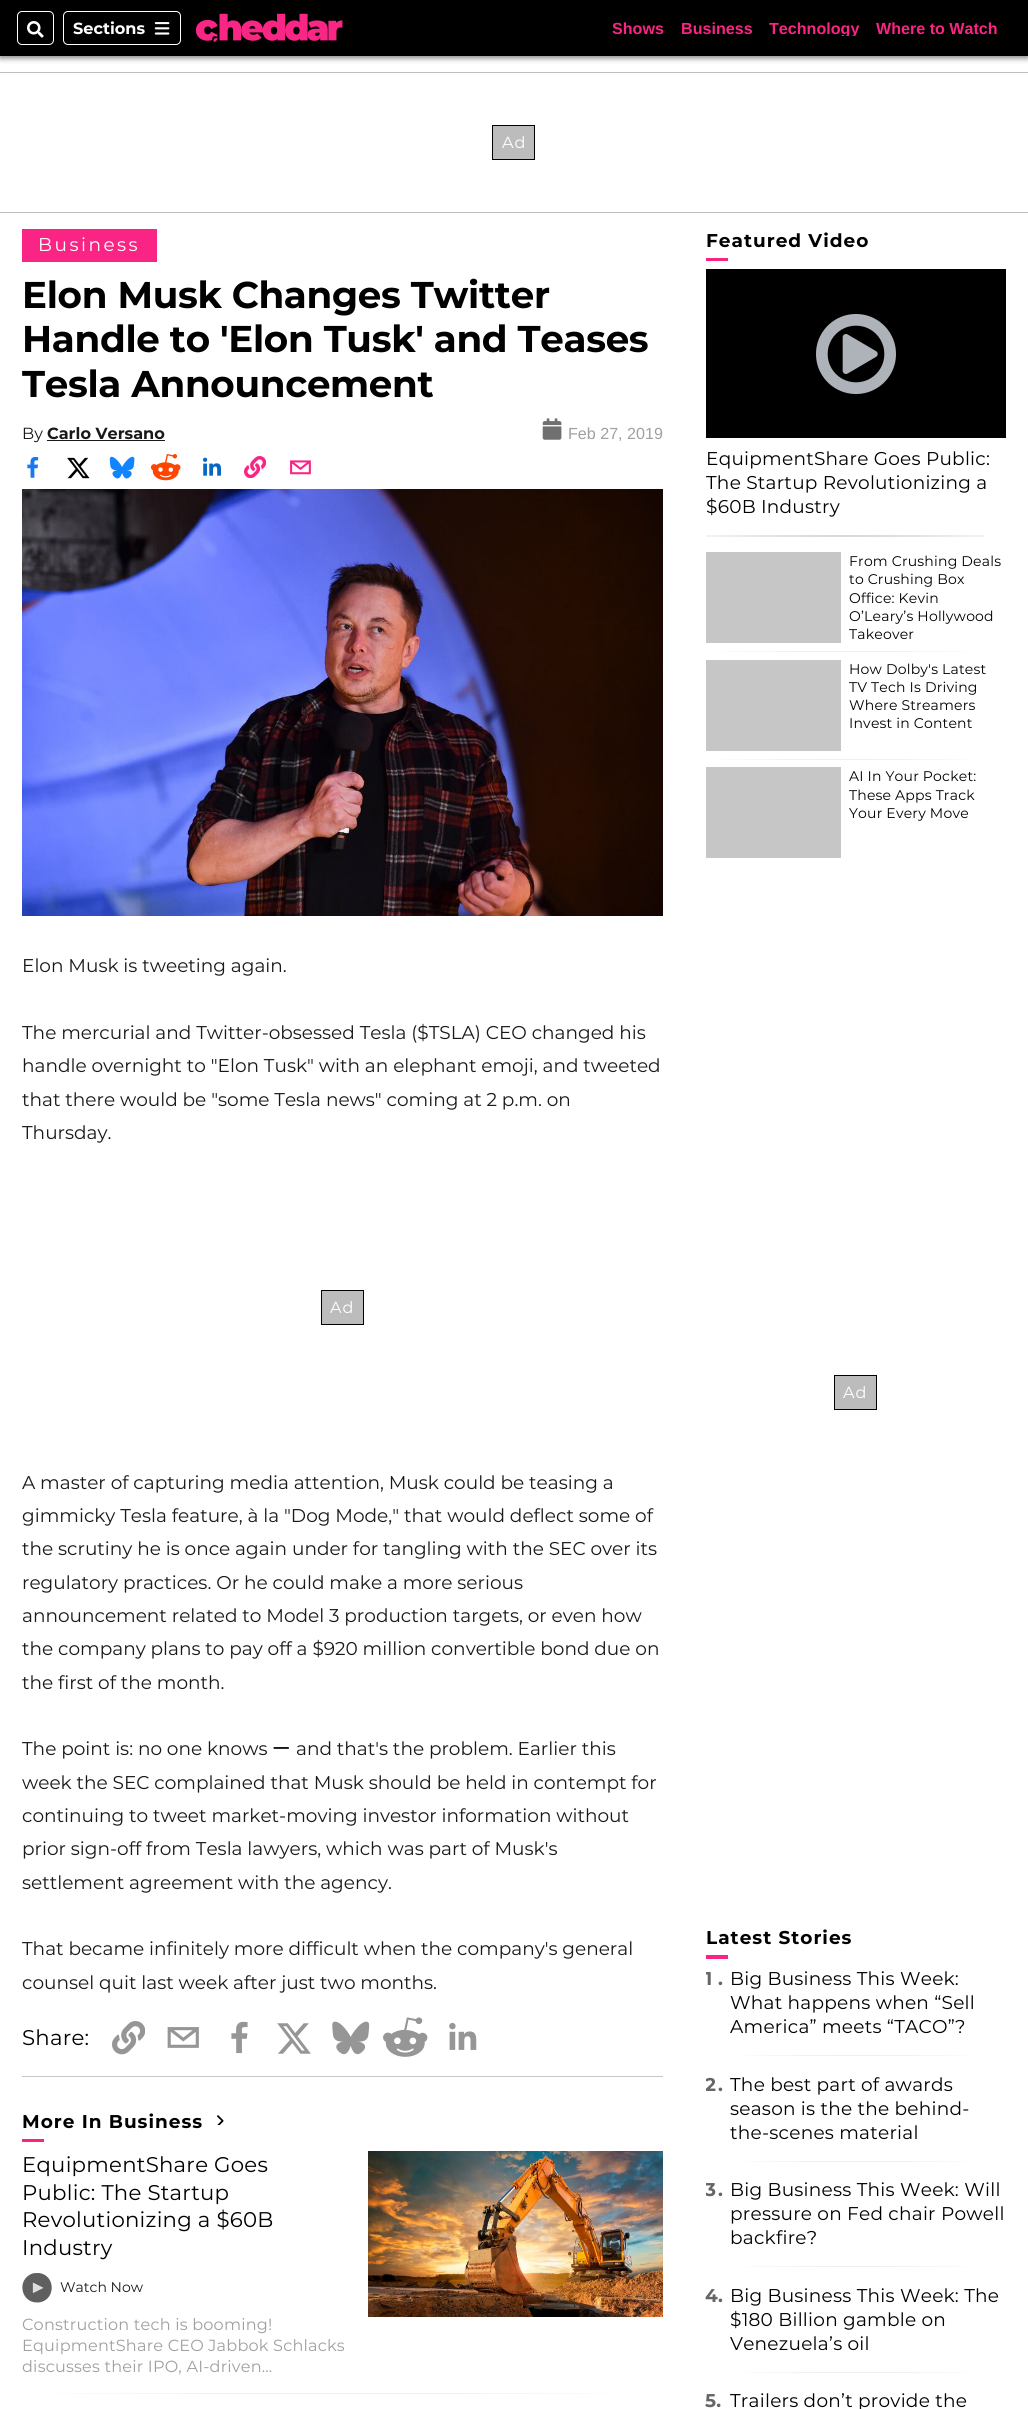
#include <cairo.h>
#include <math.h>
#include <stddef.h>

typedef struct { const char *family; double size; int italic, bold; unsigned color; } style_t;
static cairo_t *ctx;

static void ink(unsigned color) {
    cairo_set_source_rgb(ctx, (color >> 16) / 255.0, (color >> 8 & 255) / 255.0, (color & 255) / 255.0);
}

static void write(double x, double y, const char *s, const style_t *st) {
    cairo_select_font_face(ctx, st->family, st->italic ? CAIRO_FONT_SLANT_ITALIC : CAIRO_FONT_SLANT_NORMAL,
        st->bold ? CAIRO_FONT_WEIGHT_BOLD : CAIRO_FONT_WEIGHT_NORMAL);
    cairo_set_font_size(ctx, st->size);
    ink(st->color);
    cairo_move_to(ctx, x, y);
    cairo_show_text(ctx, s);
}

static void write_spaced(double x, double y, const char *s, double letter, double word) {
    cairo_move_to(ctx, x, y);
    while (*s) {
        char ch[5] = {0};
        int n = 0;
        do ch[n++] = *s++; while ((*s & 0xC0) == 0x80);
        cairo_show_text(ctx, ch);
        cairo_rel_move_to(ctx, letter + word * (*ch == ' '), 0);
    }
}

static void block(double x, double y, double w, double h, unsigned color) {
    ink(color);
    cairo_rectangle(ctx, x, y, w, h);
    cairo_fill(ctx);
}

static void round_path(double x, double y, double w, double h, double r) {
    cairo_new_sub_path(ctx);
    cairo_arc(ctx, x + w - r, y + h - r, r, 0, M_PI / 2);
    cairo_arc(ctx, x + r, y + h - r, r, M_PI / 2, M_PI);
    cairo_arc(ctx, x + r, y + r, r, M_PI, 1.5 * M_PI);
    cairo_arc(ctx, x + w - r, y + r, r, 1.5 * M_PI, 2 * M_PI);
    cairo_close_path(ctx);
}

static void blur_box(double x, double y, double w, double h, double r, double blur, double alpha) {
    cairo_push_group_with_content(ctx, CAIRO_CONTENT_ALPHA);
    cairo_set_operator(ctx, CAIRO_OPERATOR_SOURCE);
    for (int i = 15; i >= -15 && fmin(w, h) + blur * i / 3 > 0; i -= 2) {
        double e = blur * i / 6;
        cairo_set_source_rgba(ctx, 0, 0, 0, alpha * erfc((i - 1) / 8.5) / 2);
        round_path(x - e, y - e, w + 2 * e, h + 2 * e, fmax(0, fmin(r + e + blur * .6, fmin(w, h) / 2 + e)));
        cairo_fill(ctx);
    }
    cairo_pattern_t *soft = cairo_pop_group(ctx);
    cairo_mask(ctx, soft);
    cairo_pattern_destroy(soft);
}

static void paste(const char *path, double x, double y, double w, double h) {
    cairo_surface_t *image = cairo_image_surface_create_from_png(path);
    cairo_save(ctx);
    cairo_set_source_surface(ctx, image, x, y);
    cairo_rectangle(ctx, x, y, w, h);
    cairo_fill(ctx);
    cairo_restore(ctx);
    cairo_surface_destroy(image);
}

static const style_t s1 = {"Montserrat", 16.1, 0, 1, 0xffffff};
static const style_t s2 = {"Liberation Sans", 16.1, 0, 1, 0xf92484};
static const style_t s3 = {"Montserrat", 16.1, 0, 0, 0x191919};
static const style_t s4 = {"Montserrat", 16.1, 0, 1, 0x191919};
static const style_t s5 = {"Liberation Sans", 16.1, 0, 0, 0xa0a0a0};
static const style_t s6 = {"Montserrat", 18.5, 0, 0, 0x191919};
static const style_t s7 = {"WenQuanYi Zen Hei Medium", 18.5, 0, 0, 0x191919};
static const style_t s8 = {"Montserrat", 14, 0, 0, 0x191919};

int main(void) {
    cairo_surface_t *surface = cairo_image_surface_create(CAIRO_FORMAT_RGB24, 1028, 2409);
    ctx = cairo_create(surface);
    cairo_font_options_t *options = cairo_font_options_create();
    cairo_font_options_set_hint_metrics(options, CAIRO_HINT_METRICS_OFF);
    cairo_font_options_set_hint_style(options, CAIRO_HINT_STYLE_NONE);
    cairo_set_font_options(ctx, options);
    cairo_set_miter_limit(ctx, 4);
    cairo_pattern_t *gradient;
    ink(0xffffff);
    cairo_paint(ctx);
    ink(0x000000);
    blur_box(0, 2, 1028, 56, 0, 3, 0.5);
    block(0, 0, 1028, 56, 0x000000);
    round_path(17.5, 11.5, 36, 33, 4.5);
    ink(0xffffff);
    cairo_set_line_width(ctx, 1);
    cairo_stroke(ctx);
    paste("pic1.png", 27, 21, 17, 17);
    round_path(63.5, 11.5, 117, 33, 4.5);
    cairo_stroke(ctx);
    write(73, 34, "Sections", &s1);
    paste("pic2.png", 154, 22, 16, 13);
    paste("pic3.png", 195, 13, 148, 29);
    write(612, 34, "Shows", &s2);
    write(681, 34, "Business", &s2);
    cairo_save(ctx);
    cairo_rectangle(ctx, 612, 20, 385, 16);
    cairo_clip(ctx);
    write(769, 34, "Technology", &s2);
    cairo_restore(ctx);
    write(876, 34, "Where to Watch", &s2);
    block(0, 72, 1028, 1, 0xbfbfbf);
    block(493, 126, 41, 33, 0xbcbcbc);
    cairo_rectangle(ctx, 492.5, 125.5, 42, 34);
    ink(0x000000);
    cairo_stroke(ctx);
    cairo_select_font_face(ctx, "Montserrat", CAIRO_FONT_SLANT_NORMAL, CAIRO_FONT_WEIGHT_NORMAL);
    ink(0xffffff);
    write_spaced(502, 148, "Ad", 1, 0);
    block(0, 212, 1028, 1, 0xbfbfbf);
    block(22, 229, 135, 33, 0xf92484);
    cairo_set_font_size(ctx, 18.5);
    ink(0xffffff);
    write_spaced(38, 251, "Business", 2.5, 0);
    cairo_select_font_face(ctx, "Montserrat", CAIRO_FONT_SLANT_NORMAL, CAIRO_FONT_WEIGHT_BOLD);
    cairo_set_font_size(ctx, 37.25);
    ink(0x000000);
    write_spaced(22, 308, "Elon Musk Changes Twitter", -0.3, 0);
    write_spaced(22, 352, "Handle to 'Elon Tusk' and Teases", -0.3, 0);
    write_spaced(22, 397, "Tesla Announcement", -0.3, 0);
    write(22, 439, "By", &s3);
    write(47, 439, "Carlo Versano", &s4);
    block(47, 440, 118, 1, 0x191919);
    paste("pic4.png", 542, 418, 20, 22);
    write(568, 439, "Feb 27, 2019", &s5);
    paste("pic5.png", 27, 456, 12, 22);
    paste("pic6.png", 67, 457, 23, 22);
    paste("pic7.png", 109, 456, 26, 23);
    paste("pic8.png", 150, 454, 31, 27);
    paste("pic9.png", 203, 457, 18, 19);
    paste("pic10.png", 244, 456, 22, 22);
    paste("pic11.png", 290, 460, 21, 15);
    paste("pic12.png", 22, 489, 641, 427);
    cairo_select_font_face(ctx, "Montserrat", CAIRO_FONT_SLANT_NORMAL, CAIRO_FONT_WEIGHT_BOLD);
    cairo_set_font_size(ctx, 18.5);
    ink(0x000000);
    write_spaced(706, 247, "Featured Video", 1, 0);
    block(706, 258, 22, 3, 0xf92484);
    block(706, 269, 300, 169, 0x000000);
    paste("pic13.png", 816, 314, 80, 80);
    cairo_select_font_face(ctx, "Montserrat", CAIRO_FONT_SLANT_NORMAL, CAIRO_FONT_WEIGHT_NORMAL);
    write_spaced(706, 465, "EquipmentShare Goes Public:", 0.25, 0);
    write_spaced(706, 489, "The Startup Revolutionizing a", 0.25, 0);
    write_spaced(706, 513, "$60B Industry", 0.25, 0);
    gradient = cairo_pattern_create_radial(0, 0, 0, 0, 0, 1);
    cairo_pattern_set_matrix(gradient, &(cairo_matrix_t){1.0 / 197, 0, 0, 1.0 / 1.4, -1.0 * 845 / 197, -1.0 * 536 / 1.4});
    cairo_pattern_add_color_stop_rgba(gradient, 0, 0.776, 0.776, 0.776, 1);
    cairo_pattern_add_color_stop_rgba(gradient, 1, 1, 1, 1, 1);
    cairo_set_source(ctx, gradient);
    cairo_pattern_destroy(gradient);
    cairo_rectangle(ctx, 706, 535, 278, 2);
    cairo_fill(ctx);
    block(706, 552, 135, 91, 0xc6c6c6);
    cairo_set_font_size(ctx, 14);
    ink(0x000000);
    write_spaced(849, 566, "From Crushing Deals", 0.2, 0);
    write_spaced(849, 584, "to Crushing Box", 0.2, 0);
    write_spaced(849, 603, "Office: Kevin", 0.2, 0);
    write_spaced(849, 621, "O’Leary’s Hollywood", 0.2, 0);
    write_spaced(849, 639, "Takeover", 0.2, 0);
    gradient = cairo_pattern_create_radial(0, 0, 0, 0, 0, 1);
    cairo_pattern_set_matrix(gradient, &(cairo_matrix_t){1.0 / 197, 0, 0, 1.0 / 0.7, -1.0 * 845 / 197, -1.0 * 652 / 0.7});
    cairo_pattern_add_color_stop_rgba(gradient, 0, 0.776, 0.776, 0.776, 1);
    cairo_pattern_add_color_stop_rgba(gradient, 1, 1, 1, 1, 1);
    cairo_set_source(ctx, gradient);
    cairo_pattern_destroy(gradient);
    cairo_rectangle(ctx, 720, 651, 250, 1);
    cairo_fill(ctx);
    block(706, 660, 135, 91, 0xc6c6c6);
    ink(0x000000);
    write_spaced(849, 674, "How Dolby's Latest", 0.2, 0);
    write_spaced(849, 692, "TV Tech Is Driving", 0.2, 0);
    write_spaced(849, 710, "Where Streamers", 0.2, 0);
    write_spaced(849, 728, "Invest in Content", 0.2, 0);
    gradient = cairo_pattern_create_radial(0, 0, 0, 0, 0, 1);
    cairo_pattern_set_matrix(gradient, &(cairo_matrix_t){1.0 / 197, 0, 0, 1.0 / 0.7, -1.0 * 845 / 197, -1.0 * 760 / 0.7});
    cairo_pattern_add_color_stop_rgba(gradient, 0, 0.776, 0.776, 0.776, 1);
    cairo_pattern_add_color_stop_rgba(gradient, 1, 1, 1, 1, 1);
    cairo_set_source(ctx, gradient);
    cairo_pattern_destroy(gradient);
    cairo_rectangle(ctx, 720, 759, 250, 1);
    cairo_fill(ctx);
    block(706, 767, 135, 91, 0xc6c6c6);
    ink(0x000000);
    write_spaced(849, 781, "AI In Your Pocket:", 0.2, 0);
    write_spaced(849, 800, "These Apps Track", 0.2, 0);
    write_spaced(849, 818, "Your Every Move", 0.2, 0);
    block(835, 1376, 41, 33, 0xbcbcbc);
    cairo_rectangle(ctx, 834.5, 1375.5, 42, 34);
    ink(0x000000);
    cairo_stroke(ctx);
    cairo_set_font_size(ctx, 16.1);
    ink(0xffffff);
    write_spaced(843, 1398, "Ad", 1, 0);
    cairo_select_font_face(ctx, "Montserrat", CAIRO_FONT_SLANT_NORMAL, CAIRO_FONT_WEIGHT_BOLD);
    cairo_set_font_size(ctx, 18.5);
    ink(0x000000);
    write_spaced(706, 1944, "Latest Stories", 1, 0);
    block(706, 1955, 22, 4, 0xf92484);
    cairo_save(ctx);
    cairo_rectangle(ctx, 706, 1967, 300, 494);
    cairo_clip(ctx);
    ink(0x666666);
    write_spaced(705, 1985, "1", 0.25, 0);
    cairo_restore(ctx);
    ink(0x666666);
    write_spaced(718, 1985, ".", 0.25, 0);
    cairo_select_font_face(ctx, "Montserrat", CAIRO_FONT_SLANT_NORMAL, CAIRO_FONT_WEIGHT_NORMAL);
    ink(0x000000);
    write_spaced(730, 1985, "Big Business This Week:", 0.25, 0);
    write_spaced(730, 2009, "What happens when “Sell", 0.25, 0);
    write_spaced(730, 2033, "America” meets “TACO”?", 0.25, 0);
    gradient = cairo_pattern_create_radial(0, 0, 0, 0, 0, 1);
    cairo_pattern_set_matrix(gradient, &(cairo_matrix_t){1.0 / 177, 0, 0, 1.0 / 0.7, -1.0 * 856 / 177, -1.0 * 2056 / 0.7});
    cairo_pattern_add_color_stop_rgba(gradient, 0, 0.776, 0.776, 0.776, 1);
    cairo_pattern_add_color_stop_rgba(gradient, 1, 1, 1, 1, 1);
    cairo_set_source(ctx, gradient);
    cairo_pattern_destroy(gradient);
    cairo_rectangle(ctx, 743, 2055, 226, 1);
    cairo_fill(ctx);
    cairo_save(ctx);
    cairo_rectangle(ctx, 706, 1967, 300, 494);
    cairo_clip(ctx);
    cairo_select_font_face(ctx, "Montserrat", CAIRO_FONT_SLANT_NORMAL, CAIRO_FONT_WEIGHT_BOLD);
    ink(0x666666);
    write_spaced(705, 2091, "2", 0.25, 0);
    cairo_restore(ctx);
    cairo_select_font_face(ctx, "Montserrat", CAIRO_FONT_SLANT_NORMAL, CAIRO_FONT_WEIGHT_BOLD);
    ink(0x666666);
    write_spaced(718, 2091, ".", 0.25, 0);
    cairo_select_font_face(ctx, "Montserrat", CAIRO_FONT_SLANT_NORMAL, CAIRO_FONT_WEIGHT_NORMAL);
    ink(0x000000);
    write_spaced(730, 2091, "The best part of awards", 0.25, 0);
    write_spaced(730, 2115, "season is the the behind-", 0.25, 0);
    write_spaced(730, 2139, "the-scenes material", 0.25, 0);
    gradient = cairo_pattern_create_radial(0, 0, 0, 0, 0, 1);
    cairo_pattern_set_matrix(gradient, &(cairo_matrix_t){1.0 / 177, 0, 0, 1.0 / 0.7, -1.0 * 856 / 177, -1.0 * 2162 / 0.7});
    cairo_pattern_add_color_stop_rgba(gradient, 0, 0.776, 0.776, 0.776, 1);
    cairo_pattern_add_color_stop_rgba(gradient, 1, 1, 1, 1, 1);
    cairo_set_source(ctx, gradient);
    cairo_pattern_destroy(gradient);
    cairo_rectangle(ctx, 743, 2161, 226, 1);
    cairo_fill(ctx);
    cairo_save(ctx);
    cairo_rectangle(ctx, 706, 1967, 300, 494);
    cairo_clip(ctx);
    cairo_select_font_face(ctx, "Montserrat", CAIRO_FONT_SLANT_NORMAL, CAIRO_FONT_WEIGHT_BOLD);
    ink(0x666666);
    write_spaced(705, 2196, "3", 0.25, 0);
    cairo_restore(ctx);
    cairo_select_font_face(ctx, "Montserrat", CAIRO_FONT_SLANT_NORMAL, CAIRO_FONT_WEIGHT_BOLD);
    ink(0x666666);
    write_spaced(718, 2196, ".", 0.25, 0);
    cairo_select_font_face(ctx, "Montserrat", CAIRO_FONT_SLANT_NORMAL, CAIRO_FONT_WEIGHT_NORMAL);
    ink(0x000000);
    write_spaced(730, 2196, "Big Business This Week: Will", 0.25, 0);
    write_spaced(730, 2220, "pressure on Fed chair Powell", 0.25, 0);
    write_spaced(730, 2244, "backfire?", 0.25, 0);
    gradient = cairo_pattern_create_radial(0, 0, 0, 0, 0, 1);
    cairo_pattern_set_matrix(gradient, &(cairo_matrix_t){1.0 / 177, 0, 0, 1.0 / 0.7, -1.0 * 856 / 177, -1.0 * 2267 / 0.7});
    cairo_pattern_add_color_stop_rgba(gradient, 0, 0.776, 0.776, 0.776, 1);
    cairo_pattern_add_color_stop_rgba(gradient, 1, 1, 1, 1, 1);
    cairo_set_source(ctx, gradient);
    cairo_pattern_destroy(gradient);
    cairo_rectangle(ctx, 743, 2266, 226, 1);
    cairo_fill(ctx);
    cairo_select_font_face(ctx, "Montserrat", CAIRO_FONT_SLANT_NORMAL, CAIRO_FONT_WEIGHT_BOLD);
    ink(0x666666);
    write_spaced(705, 2302, "4.", 0.25, 0);
    cairo_select_font_face(ctx, "Montserrat", CAIRO_FONT_SLANT_NORMAL, CAIRO_FONT_WEIGHT_NORMAL);
    ink(0x000000);
    write_spaced(730, 2302, "Big Business This Week: The", 0.25, 0);
    write_spaced(730, 2326, "$180 Billion gamble on", 0.25, 0);
    write_spaced(730, 2350, "Venezuela’s oil", 0.25, 0);
    gradient = cairo_pattern_create_radial(0, 0, 0, 0, 0, 1);
    cairo_pattern_set_matrix(gradient, &(cairo_matrix_t){1.0 / 177, 0, 0, 1.0 / 0.7, -1.0 * 856 / 177, -1.0 * 2373 / 0.7});
    cairo_pattern_add_color_stop_rgba(gradient, 0, 0.776, 0.776, 0.776, 1);
    cairo_pattern_add_color_stop_rgba(gradient, 1, 1, 1, 1, 1);
    cairo_set_source(ctx, gradient);
    cairo_pattern_destroy(gradient);
    cairo_rectangle(ctx, 743, 2372, 226, 1);
    cairo_fill(ctx);
    cairo_select_font_face(ctx, "Montserrat", CAIRO_FONT_SLANT_NORMAL, CAIRO_FONT_WEIGHT_BOLD);
    ink(0x666666);
    write_spaced(705, 2407, "5.", 0.25, 0);
    cairo_select_font_face(ctx, "Montserrat", CAIRO_FONT_SLANT_NORMAL, CAIRO_FONT_WEIGHT_NORMAL);
    ink(0x000000);
    write_spaced(730, 2407, "Trailers don’t provide the", 0.25, 0);
    write(22, 972, "Elon Musk is tweeting again.", &s6);
    write(22, 1039, "The mercurial and Twitter-obsessed Tesla ($TSLA) CEO changed his", &s6);
    write(22, 1072, "handle overnight to \"Elon Tusk\" with an elephant emoji, and tweeted", &s6);
    write(22, 1106, "that there would be \"some Tesla news\" coming at 2 p.m. on", &s6);
    write(22, 1139, "Thursday.", &s6);
    block(322, 1291, 41, 33, 0xbcbcbc);
    cairo_rectangle(ctx, 321.5, 1290.5, 42, 34);
    ink(0x000000);
    cairo_stroke(ctx);
    cairo_set_font_size(ctx, 16.1);
    ink(0xffffff);
    write_spaced(330, 1313, "Ad", 1, 0);
    write(22, 1489, "A master of capturing media attention, Musk could be teasing a", &s6);
    write(22, 1522, "gimmicky Tesla feature, à la \"Dog Mode,\" that would deflect some of", &s6);
    write(22, 1555, "the scrutiny he is once again under for tangling with the SEC over its", &s6);
    write(22, 1589, "regulatory practices. Or he could make a more serious", &s6);
    write(22, 1622, "announcement related to Model 3 production targets, or even how", &s6);
    write(22, 1655, "the company plans to pay off a $920 million convertible bond due on", &s6);
    write(22, 1689, "the first of the month.", &s6);
    write(22, 1755, "The point is: no one knows", &s6);
    write(272, 1755, "ー", &s7);
    write(296, 1755, "and that's the problem. Earlier this", &s6);
    write(22, 1789, "week the SEC complained that Musk should be held in contempt for", &s6);
    write(22, 1822, "continuing to tweet market-moving investor information without", &s6);
    write(22, 1855, "prior sign-off from Tesla lawyers, which was part of Musk's", &s6);
    write(22, 1889, "settlement agreement with the agency.", &s6);
    write(22, 1955, "That became infinitely more difficult when the company's general", &s6);
    write(22, 1989, "counsel quit last week after just two months.", &s6);
    block(22, 2076, 641, 1, 0xc6c6c6);
    cairo_set_font_size(ctx, 21.25);
    ink(0x000000);
    write_spaced(22, 2045, "Share:", 0.25, 0);
    paste("pic14.png", 112, 2021, 33, 34);
    paste("pic15.png", 167, 2027, 32, 21);
    paste("pic16.png", 231, 2021, 17, 33);
    paste("pic17.png", 277, 2023, 34, 31);
    paste("pic18.png", 332, 2021, 38, 34);
    paste("pic19.png", 383, 2017, 45, 40);
    paste("pic20.png", 449, 2022, 28, 28);
    cairo_select_font_face(ctx, "Montserrat", CAIRO_FONT_SLANT_NORMAL, CAIRO_FONT_WEIGHT_BOLD);
    cairo_set_font_size(ctx, 18.5);
    write_spaced(22, 2128, "More In Business", 1, 0);
    paste("pic21.png", 216, 2115, 8, 10);
    block(22, 2139, 22, 3, 0xf92484);
    cairo_select_font_face(ctx, "Montserrat", CAIRO_FONT_SLANT_NORMAL, CAIRO_FONT_WEIGHT_NORMAL);
    cairo_set_font_size(ctx, 21.25);
    ink(0x000000);
    write_spaced(22, 2172, "EquipmentShare Goes", 0.25, 0);
    write_spaced(22, 2200, "Public: The Startup", 0.25, 0);
    write_spaced(22, 2227, "Revolutionizing a $60B", 0.25, 0);
    write_spaced(22, 2255, "Industry", 0.25, 0);
    ink(0x5f5f5f);
    cairo_new_path(ctx);
    cairo_move_to(ctx, 39, 2273);
    cairo_curve_to(ctx, 57, 2275.5, 55.5, 2302.5, 37, 2302.5);
    cairo_curve_to(ctx, 20.5, 2302.5, 16.5, 2279, 32.5, 2273.5);
    cairo_curve_to(ctx, 34.5, 2273, 37, 2273, 39, 2273);
    cairo_close_path(ctx);
    cairo_fill(ctx);
    paste("pic22.png", 32, 2282, 12, 11);
    write(60, 2292, "Watch Now", &s8);
    cairo_set_font_size(ctx, 16.1);
    ink(0xa0a0a0);
    write_spaced(22, 2330, "Construction tech is booming!", 0.2, 0);
    write_spaced(22, 2351, "EquipmentShare CEO Jabbok Schlacks", 0.2, 0);
    write_spaced(22, 2372, "discusses their IPO, AI-driven…", 0.2, 0);
    paste("pic23.png", 368, 2151, 295, 166);
    gradient = cairo_pattern_create_radial(0, 0, 0, 0, 0, 1);
    cairo_pattern_set_matrix(gradient, &(cairo_matrix_t){1.0 / 438, 0, 0, 1.0 / 0.7, -1.0 * 332 / 438, -1.0 * 2394 / 0.7});
    cairo_pattern_add_color_stop_rgba(gradient, 0, 0.776, 0.776, 0.776, 1);
    cairo_pattern_add_color_stop_rgba(gradient, 1, 1, 1, 1, 1);
    cairo_set_source(ctx, gradient);
    cairo_pattern_destroy(gradient);
    cairo_rectangle(ctx, 54, 2393, 556, 1);
    cairo_fill(ctx);
    cairo_surface_write_to_png(surface, "screenshot.png");
    cairo_font_options_destroy(options);
    cairo_destroy(ctx);
    cairo_surface_destroy(surface);
    return 0;
}
